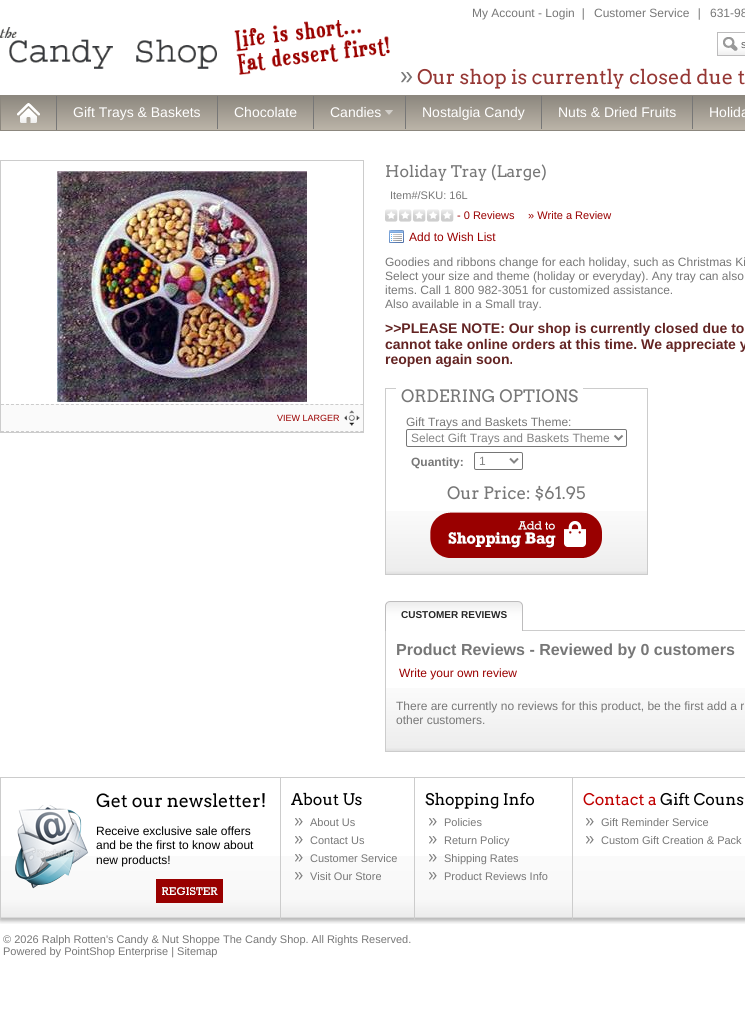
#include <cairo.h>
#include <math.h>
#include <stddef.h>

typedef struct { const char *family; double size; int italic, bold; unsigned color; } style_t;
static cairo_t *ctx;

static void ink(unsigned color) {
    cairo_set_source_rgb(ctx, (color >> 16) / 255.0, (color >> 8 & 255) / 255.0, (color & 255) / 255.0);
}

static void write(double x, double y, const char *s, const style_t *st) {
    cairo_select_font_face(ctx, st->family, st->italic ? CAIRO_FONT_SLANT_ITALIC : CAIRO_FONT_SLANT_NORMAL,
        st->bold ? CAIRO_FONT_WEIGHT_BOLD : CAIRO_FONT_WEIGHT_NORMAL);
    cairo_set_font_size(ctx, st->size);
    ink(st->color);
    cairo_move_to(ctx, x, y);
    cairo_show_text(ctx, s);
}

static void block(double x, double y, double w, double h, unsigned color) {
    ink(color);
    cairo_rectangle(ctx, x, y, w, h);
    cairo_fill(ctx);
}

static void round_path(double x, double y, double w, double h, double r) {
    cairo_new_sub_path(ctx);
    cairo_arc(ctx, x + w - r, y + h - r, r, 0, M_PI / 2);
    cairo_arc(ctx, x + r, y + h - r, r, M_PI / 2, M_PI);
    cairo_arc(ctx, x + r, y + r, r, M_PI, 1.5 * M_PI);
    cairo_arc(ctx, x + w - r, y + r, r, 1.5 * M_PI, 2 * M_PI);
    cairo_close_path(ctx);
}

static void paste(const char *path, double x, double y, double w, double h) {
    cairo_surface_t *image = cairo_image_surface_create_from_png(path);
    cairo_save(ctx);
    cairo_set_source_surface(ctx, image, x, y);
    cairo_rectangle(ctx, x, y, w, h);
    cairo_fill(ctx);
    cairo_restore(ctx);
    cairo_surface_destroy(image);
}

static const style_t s1 = {"Liberation Sans", 12, 0, 0, 0x777777};
static const style_t s2 = {"Liberation Sans", 11, 0, 0, 0x5e5e5e};
static const style_t s3 = {"Arvo", 20, 0, 0, 0x953734};
static const style_t s4 = {"Liberation Sans", 14, 0, 0, 0xffffff};
static const style_t s5 = {"Liberation Sans", 9, 0, 0, 0x990000};
static const style_t s6 = {"Arvo", 16, 0, 0, 0x777777};
static const style_t s7 = {"Liberation Sans", 11, 0, 0, 0x777777};
static const style_t s8 = {"Liberation Sans", 11, 0, 0, 0x990000};
static const style_t s9 = {"Liberation Sans", 12, 0, 0, 0x990000};
static const style_t s10 = {"Liberation Sans", 14, 0, 1, 0x632423};
static const style_t s11 = {"Arvo", 17, 0, 0, 0x777777};
static const style_t s12 = {"Liberation Sans", 12, 0, 0, 0x848484};
static const style_t s13 = {"Liberation Sans", 12, 0, 1, 0x777777};
static const style_t s14 = {"Liberation Sans", 10, 0, 1, 0x262626};
static const style_t s15 = {"Liberation Sans", 16, 0, 1, 0x777777};
static const style_t s16 = {"Arvo", 18, 0, 0, 0x000000};
static const style_t s17 = {"Liberation Sans", 12, 0, 0, 0x000000};
static const style_t s18 = {"Arvo", 16, 0, 0, 0x000000};
static const style_t s19 = {"Arvo", 16, 0, 0, 0xc00000};

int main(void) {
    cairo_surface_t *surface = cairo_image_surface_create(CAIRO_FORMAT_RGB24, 745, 1015);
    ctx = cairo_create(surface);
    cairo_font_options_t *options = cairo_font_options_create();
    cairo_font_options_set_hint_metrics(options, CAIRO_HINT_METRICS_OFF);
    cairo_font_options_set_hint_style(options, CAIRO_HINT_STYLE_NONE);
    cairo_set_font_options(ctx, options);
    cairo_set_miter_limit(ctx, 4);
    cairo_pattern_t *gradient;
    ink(0xffffff);
    cairo_paint(ctx);
    paste("pic1.png", 582, 8, 2, 12);
    write(472, 17, "My Account - Login", &s1);
    paste("pic1.png", 698, 8, 2, 12);
    write(594, 17, "Customer Service", &s1);
    write(710, 17, "631-98", &s1);
    paste("pic2.png", 0, 20, 390, 55);
    paste("pic3.png", 717, 32, 28, 24);
    write(741, 48, "s", &s2);
    paste("pic4.png", 401, 72, 12, 11);
    write(417, 84, "Our shop is currently closed due t", &s3);
    gradient = cairo_pattern_create_linear(481, 96, 481, 130);
    cairo_pattern_add_color_stop_rgba(gradient, 0, 0.549, 0.529, 0.494, 1);
    cairo_pattern_add_color_stop_rgba(gradient, 1, 0.733, 0.706, 0.659, 1);
    cairo_set_source(ctx, gradient);
    cairo_pattern_destroy(gradient);
    cairo_rectangle(ctx, 1, 96, 744, 34);
    cairo_fill(ctx);
    cairo_rectangle(ctx, 0.5, 95.5, 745, 35);
    ink(0x8c877e);
    cairo_set_line_width(ctx, 1);
    cairo_stroke(ctx);
    block(56, 96, 1, 34, 0x777777);
    paste("pic5.png", 17, 103, 23, 20);
    block(217, 96, 1, 33, 0x777777);
    write(73, 117, "Gift Trays & Baskets", &s4);
    block(313, 96, 1, 33, 0x777777);
    write(234, 117, "Chocolate", &s4);
    block(405, 96, 1, 33, 0x777777);
    write(330, 117, "Candies", &s4);
    paste("pic6.png", 385, 110, 8, 5);
    block(541, 96, 1, 33, 0x777777);
    write(422, 117, "Nostalgia Candy", &s4);
    block(692, 96, 1, 33, 0x777777);
    write(558, 117, "Nuts & Dried Fruits", &s4);
    write(709, 117, "Holida", &s4);
    cairo_rectangle(ctx, 0.5, 160.5, 363, 272);
    ink(0xcccccc);
    cairo_stroke(ctx);
    paste("pic7.png", 57, 171, 250, 231);
    block(1, 404, 362, 28, 0xfafafa);
    cairo_new_path(ctx);
    cairo_move_to(ctx, 1, 404.5);
    cairo_line_to(ctx, 363, 404.5);
    ink(0xcccccc);
    cairo_set_dash(ctx, (double[]){3, 1.99}, 2, 0);
    cairo_stroke(ctx);
    cairo_new_path(ctx);
    cairo_move_to(ctx, 1, 431.5);
    cairo_line_to(ctx, 363, 431.5);
    cairo_stroke(ctx);
    paste("pic8.png", 344, 410, 16, 16);
    write(277, 421, "VIEW LARGER", &s5);
    write(385, 177, "Holiday Tray (Large)", &s6);
    write(390, 199, "Item#/SKU: 16L", &s7);
    paste("pic9.png", 385, 209, 69, 13);
    write(457, 219, "- 0 Reviews", &s8);
    write(528, 219, "» Write a Review", &s8);
    paste("pic10.png", 389, 230, 15, 13);
    write(409, 241, "Add to Wish List", &s9);
    write(385, 266, "Goodies and ribbons change for each holiday, such as Christmas Ki", &s1);
    write(385, 280, "Select your size and theme (holiday or everyday). Any tray can also", &s1);
    write(385, 294, "items. Call 1 800 982-3051 for customized assistance.", &s1);
    write(385, 308, "Also available in a Small tray.", &s1);
    write(385, 333, ">>PLEASE NOTE: Our shop is currently closed due to", &s10);
    write(385, 349, "cannot take online orders at this time. We appreciate y", &s10);
    write(385, 364, "reopen again soon.", &s10);
    paste("pic11.png", 386, 511, 261, 63);
    cairo_rectangle(ctx, 385.5, 388.5, 262, 186);
    ink(0xcccccc);
    cairo_set_dash(ctx, NULL, 0, 0);
    cairo_stroke(ctx);
    block(396, 388, 187, 1, 0xffffff);
    write(401, 402, "ORDERING OPTIONS", &s11);
    write(406, 426, "Gift Trays and Baskets Theme:", &s1);
    round_path(406.5, 429.5, 220, 17, 1.5);
    ink(0x767676);
    cairo_stroke(ctx);
    cairo_new_path(ctx);
    cairo_move_to(ctx, 614.5, 435.5);
    cairo_line_to(ctx, 618.5, 439.5);
    cairo_line_to(ctx, 622.5, 435.5);
    ink(0x848484);
    cairo_set_line_width(ctx, 2);
    cairo_stroke(ctx);
    write(411, 442, "Select Gift Trays and Baskets Theme", &s12);
    write(411, 466, "Quantity:", &s13);
    round_path(474.5, 452.5, 48, 17, 1.5);
    ink(0x767676);
    cairo_set_line_width(ctx, 1);
    cairo_stroke(ctx);
    cairo_new_path(ctx);
    cairo_move_to(ctx, 510, 458.5);
    cairo_line_to(ctx, 514, 462.5);
    cairo_line_to(ctx, 518, 458.5);
    ink(0x848484);
    cairo_set_line_width(ctx, 2);
    cairo_stroke(ctx);
    write(479, 465, "1", &s12);
    write(447, 499, "Our Price: $61.95", &s11);
    paste("pic12.png", 430, 512, 172, 46);
    paste("pic16.png", 386, 688, 359, 63);
    cairo_rectangle(ctx, 385.5, 630.5, 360, 121);
    ink(0xcccccc);
    cairo_set_line_width(ctx, 1);
    cairo_stroke(ctx);
    paste("pic13.png", 517, 601, 6, 30);
    paste("pic14.png", 385, 601, 6, 30);
    paste("pic15.png", 391, 601, 126, 30);
    write(401, 618, "CUSTOMER REVIEWS", &s14);
    write(396, 655, "Product Reviews - Reviewed by 0 customers", &s15);
    write(399, 677, "Write your own review", &s9);
    write(396, 710, "There are currently no reviews for this product, be the first add a r", &s1);
    write(396, 724, "other customers.", &s1);
    paste("pic17.png", 0, 856, 745, 68);
    block(0, 777, 745, 1, 0xcccccc);
    block(0, 777, 1, 142, 0xcccccc);
    paste("pic18.png", 15, 805, 74, 84);
    write(96, 807, "Get our newsletter!", &s16);
    write(96, 835, "Receive exclusive sale offers", &s17);
    write(96, 849, "and be the first to know about", &s17);
    write(96, 864, "new products!", &s17);
    paste("pic19.png", 156, 879, 67, 24);
    block(280, 777, 1, 143, 0xcccccc);
    write(291, 805, "About Us", &s18);
    paste("pic20.png", 295, 818, 8, 8);
    write(310, 826, "About Us", &s7);
    paste("pic20.png", 295, 836, 8, 8);
    write(310, 844, "Contact Us", &s7);
    paste("pic21.png", 295, 854, 8, 8);
    write(310, 862, "Customer Service", &s7);
    paste("pic22.png", 295, 872, 8, 8);
    write(310, 880, "Visit Our Store", &s7);
    block(414, 777, 1, 143, 0xcccccc);
    write(425, 805, "Shopping Info", &s18);
    paste("pic20.png", 429, 818, 8, 8);
    write(444, 826, "Policies", &s7);
    paste("pic20.png", 429, 836, 8, 8);
    write(444, 844, "Return Policy", &s7);
    paste("pic21.png", 429, 854, 8, 8);
    write(444, 862, "Shipping Rates", &s7);
    paste("pic22.png", 429, 872, 8, 8);
    write(444, 880, "Product Reviews Info", &s7);
    block(572, 777, 1, 143, 0xcccccc);
    write(583, 805, "Contact a", &s19);
    write(660, 805, "Gift Couns", &s18);
    paste("pic20.png", 586, 818, 8, 8);
    write(601, 826, "Gift Reminder Service", &s7);
    paste("pic20.png", 586, 836, 8, 8);
    write(601, 844, "Custom Gift Creation & Pack", &s7);
    write(3, 943, "© 2026 Ralph Rotten's Candy & Nut Shoppe The Candy Shop. All Rights Reserved.", &s7);
    write(3, 955, "Powered by PointShop Enterprise | Sitemap", &s7);
    cairo_surface_write_to_png(surface, "screenshot.png");
    cairo_font_options_destroy(options);
    cairo_destroy(ctx);
    cairo_surface_destroy(surface);
    return 0;
}
